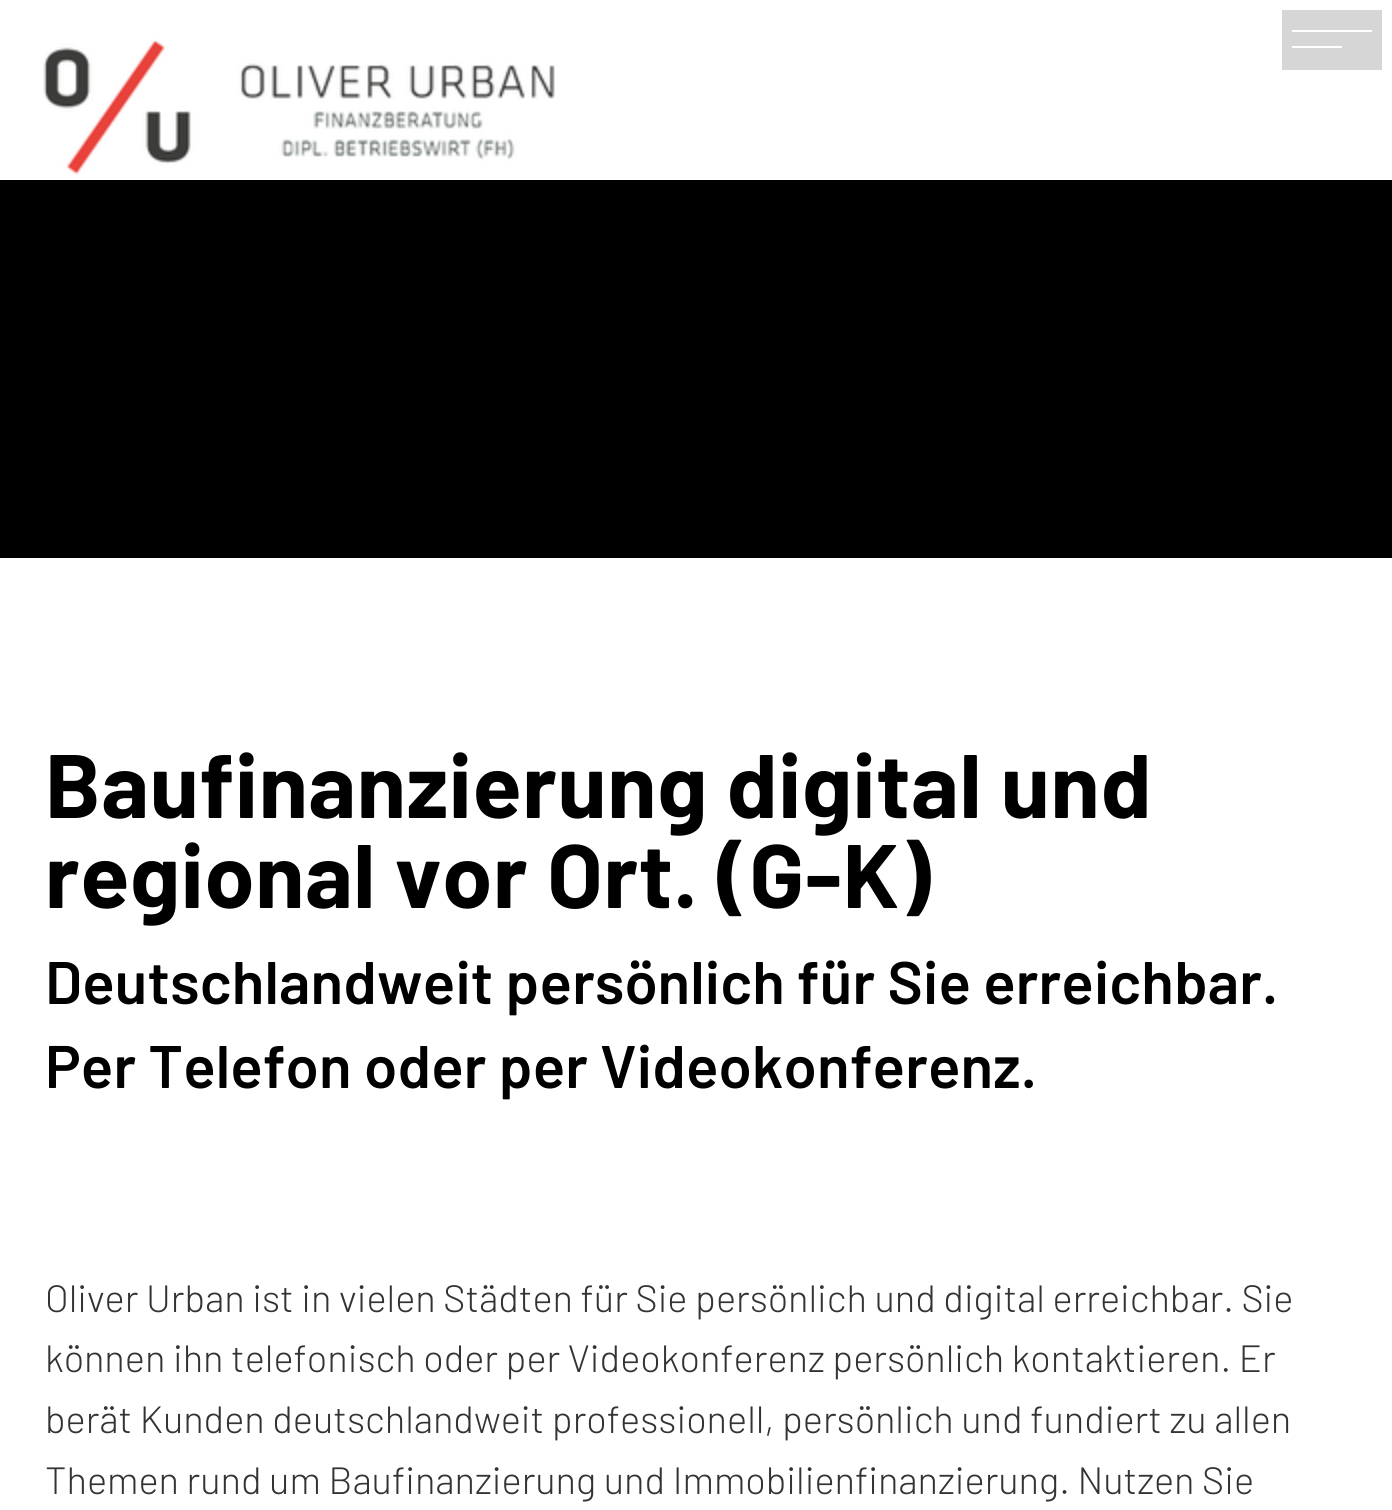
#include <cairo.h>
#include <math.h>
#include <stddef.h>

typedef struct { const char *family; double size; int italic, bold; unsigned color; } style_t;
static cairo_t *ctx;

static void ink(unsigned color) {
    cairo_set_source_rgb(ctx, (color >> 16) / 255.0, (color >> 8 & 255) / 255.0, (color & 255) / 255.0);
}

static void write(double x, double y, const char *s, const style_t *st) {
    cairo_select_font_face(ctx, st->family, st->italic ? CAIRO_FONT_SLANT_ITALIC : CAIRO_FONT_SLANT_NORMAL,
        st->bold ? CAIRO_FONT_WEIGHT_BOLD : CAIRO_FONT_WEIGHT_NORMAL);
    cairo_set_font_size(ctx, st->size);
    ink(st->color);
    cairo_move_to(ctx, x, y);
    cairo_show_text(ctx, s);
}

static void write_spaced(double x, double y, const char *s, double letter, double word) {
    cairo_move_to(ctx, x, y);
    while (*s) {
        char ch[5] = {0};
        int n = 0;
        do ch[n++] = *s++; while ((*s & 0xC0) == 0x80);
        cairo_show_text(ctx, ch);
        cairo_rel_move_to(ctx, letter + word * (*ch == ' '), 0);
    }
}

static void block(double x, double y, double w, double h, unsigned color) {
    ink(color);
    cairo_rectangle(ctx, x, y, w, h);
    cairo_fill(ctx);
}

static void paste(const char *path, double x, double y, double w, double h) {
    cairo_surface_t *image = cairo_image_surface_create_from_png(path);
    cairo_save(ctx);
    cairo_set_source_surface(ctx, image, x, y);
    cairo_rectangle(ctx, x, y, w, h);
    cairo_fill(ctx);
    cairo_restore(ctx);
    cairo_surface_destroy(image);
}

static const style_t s1 = {"Barlow Light", 38, 0, 0, 0x333333};

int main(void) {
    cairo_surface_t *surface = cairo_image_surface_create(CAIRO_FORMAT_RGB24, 1392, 1510);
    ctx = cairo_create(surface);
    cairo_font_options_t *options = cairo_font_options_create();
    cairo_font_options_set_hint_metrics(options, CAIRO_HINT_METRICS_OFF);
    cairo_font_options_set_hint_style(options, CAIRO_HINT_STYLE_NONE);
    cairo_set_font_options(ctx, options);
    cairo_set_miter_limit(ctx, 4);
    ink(0x000000);
    cairo_paint(ctx);
    block(0, 0, 1392, 180, 0xffffff);
    paste("pic1.png", 43, 39, 512, 136);
    block(1282, 10, 100, 60, 0xd6d6d6);
    block(1292, 30, 80, 2, 0xffffff);
    block(1292, 46, 50, 2, 0xffffff);
    block(0, 558, 1392, 952, 0xffffff);
    cairo_select_font_face(ctx, "Barlow", CAIRO_FONT_SLANT_NORMAL, CAIRO_FONT_WEIGHT_BOLD);
    cairo_set_font_size(ctx, 90);
    ink(0x000000);
    write_spaced(45, 818, "Baufinanzierung digital und", 0.7, 0);
    write_spaced(45, 908, "regional vor Ort. (G-K)", 0.7, 0);
    cairo_select_font_face(ctx, "Barlow SemiBold", CAIRO_FONT_SLANT_NORMAL, CAIRO_FONT_WEIGHT_NORMAL);
    cairo_set_font_size(ctx, 60);
    write_spaced(45, 1004, "Deutschlandweit persönlich für Sie erreichbar.", 0.15, 0);
    write_spaced(45, 1088, "Per Telefon oder per Videokonferenz.", 0.15, 0);
    write(45, 1312, "Oliver Urban ist in vielen Städten für Sie persönlich und digital erreichbar. Sie", &s1);
    write(45, 1372, "können ihn telefonisch oder per Videokonferenz persönlich kontaktieren. Er", &s1);
    write(45, 1433, "berät Kunden deutschlandweit professionell, persönlich und fundiert zu allen", &s1);
    write(45, 1494, "Themen rund um Baufinanzierung und Immobilienfinanzierung. Nutzen Sie", &s1);
    cairo_surface_write_to_png(surface, "screenshot.png");
    cairo_font_options_destroy(options);
    cairo_destroy(ctx);
    cairo_surface_destroy(surface);
    return 0;
}
